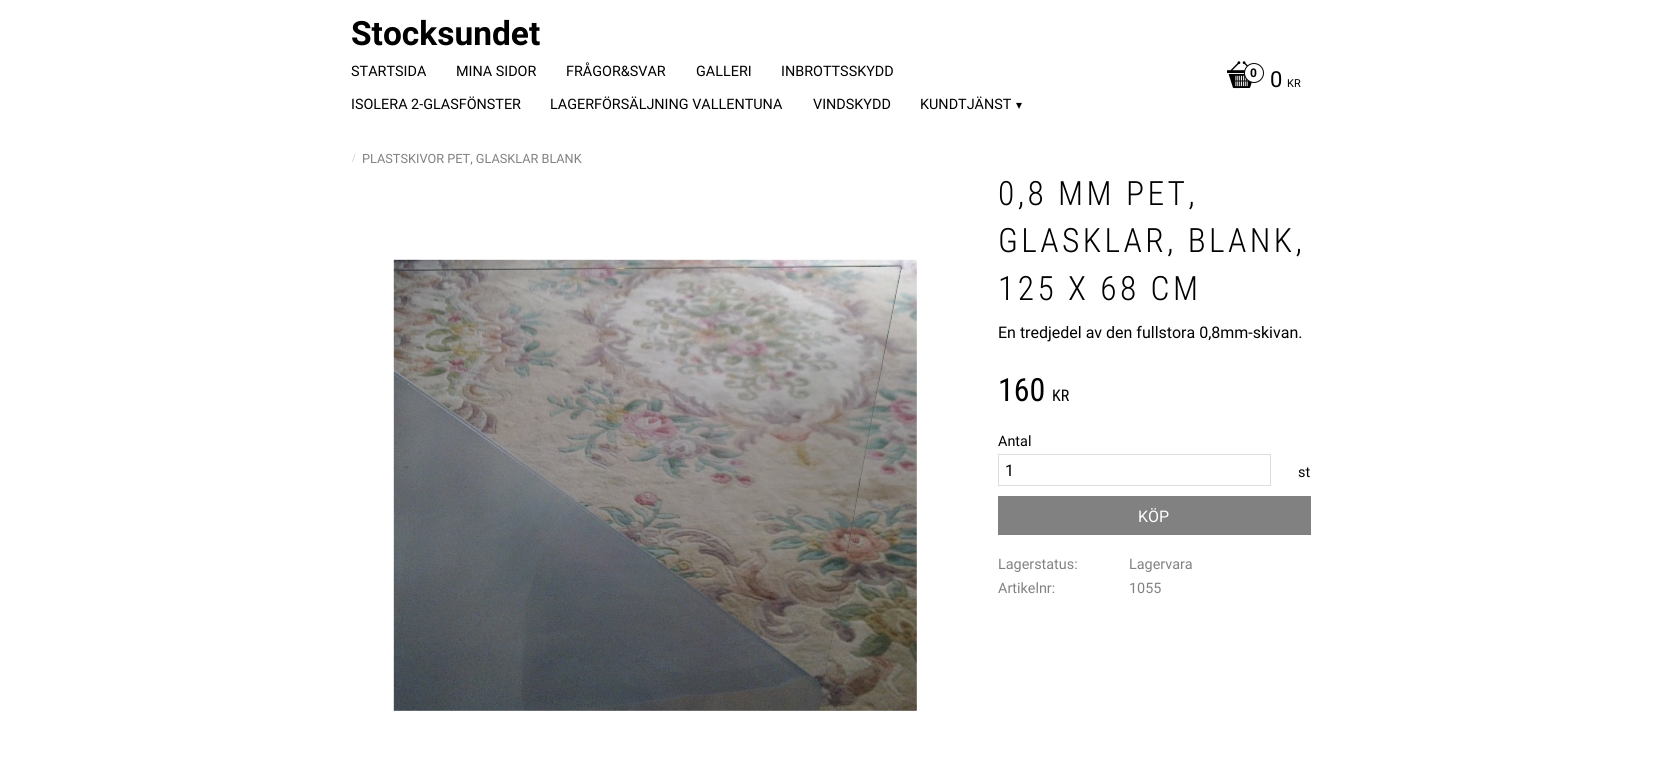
#include <cairo.h>
#include <math.h>
#include <stddef.h>

typedef struct { const char *family; double size; int italic, bold; unsigned color; } style_t;
static cairo_t *ctx;

static void ink(unsigned color) {
    cairo_set_source_rgb(ctx, (color >> 16) / 255.0, (color >> 8 & 255) / 255.0, (color & 255) / 255.0);
}

static void write(double x, double y, const char *s, const style_t *st) {
    cairo_select_font_face(ctx, st->family, st->italic ? CAIRO_FONT_SLANT_ITALIC : CAIRO_FONT_SLANT_NORMAL,
        st->bold ? CAIRO_FONT_WEIGHT_BOLD : CAIRO_FONT_WEIGHT_NORMAL);
    cairo_set_font_size(ctx, st->size);
    ink(st->color);
    cairo_move_to(ctx, x, y);
    cairo_show_text(ctx, s);
}

static void write_spaced(double x, double y, const char *s, double letter, double word) {
    cairo_move_to(ctx, x, y);
    while (*s) {
        char ch[5] = {0};
        int n = 0;
        do ch[n++] = *s++; while ((*s & 0xC0) == 0x80);
        cairo_show_text(ctx, ch);
        cairo_rel_move_to(ctx, letter + word * (*ch == ' '), 0);
    }
}

static void block(double x, double y, double w, double h, unsigned color) {
    ink(color);
    cairo_rectangle(ctx, x, y, w, h);
    cairo_fill(ctx);
}

static void paste(const char *path, double x, double y, double w, double h) {
    cairo_surface_t *image = cairo_image_surface_create_from_png(path);
    cairo_save(ctx);
    cairo_set_source_surface(ctx, image, x, y);
    cairo_rectangle(ctx, x, y, w, h);
    cairo_fill(ctx);
    cairo_restore(ctx);
    cairo_surface_destroy(image);
}

static const style_t s1 = {"Roboto", 33.5, 0, 1, 0x000000};
static const style_t s2 = {"Roboto", 14.4, 0, 0, 0x000000};
static const style_t s3 = {"DejaVu Sans", 12, 0, 0, 0x000000};
static const style_t s4 = {"Roboto", 12, 0, 1, 0x000000};
static const style_t s5 = {"Roboto", 22, 0, 0, 0x000000};
static const style_t s6 = {"Roboto", 11, 0, 0, 0x000000};
static const style_t s7 = {"Liberation Serif", 12.75, 0, 0, 0xc3c3c3};
static const style_t s8 = {"Roboto", 12.75, 0, 0, 0x818181};
static const style_t s9 = {"Roboto", 16, 0, 0, 0x000000};
static const style_t s10 = {"Roboto Condensed", 32, 0, 0, 0x000000};
static const style_t s11 = {"Roboto Condensed", 16, 0, 0, 0x000000};
static const style_t s12 = {"Roboto", 16, 0, 0, 0xffffff};
static const style_t s13 = {"Roboto", 14.4, 0, 0, 0x818181};

int main(void) {
    cairo_surface_t *surface = cairo_image_surface_create(CAIRO_FORMAT_RGB24, 1661, 777);
    ctx = cairo_create(surface);
    cairo_font_options_t *options = cairo_font_options_create();
    cairo_font_options_set_hint_metrics(options, CAIRO_HINT_METRICS_OFF);
    cairo_font_options_set_hint_style(options, CAIRO_HINT_STYLE_NONE);
    cairo_set_font_options(ctx, options);
    cairo_set_miter_limit(ctx, 4);
    ink(0xffffff);
    cairo_paint(ctx);
    write(351, 45, "Stocksundet", &s1);
    write(351, 76, "STARTSIDA", &s2);
    write(456, 76, "MINA SIDOR", &s2);
    write(566, 76, "FRÅGOR&SVAR", &s2);
    write(696, 76, "GALLERI", &s2);
    write(781, 76, "INBROTTSSKYDD", &s2);
    write(351, 109, "ISOLERA 2-GLASFÖNSTER", &s2);
    write(550, 109, "LAGERFÖRSÄLJNING VALLENTUNA", &s2);
    write(813, 109, "VINDSKYDD", &s2);
    write(920, 109, "KUNDTJÄNST", &s2);
    write(1016, 109, "▾", &s3);
    paste("pic1.png", 1227, 61, 25, 28);
    ink(0xffffff);
    cairo_arc(ctx, 1254, 73, 9.5, 0, 2 * M_PI);
    cairo_fill_preserve(ctx);
    ink(0x000000);
    cairo_set_line_width(ctx, 1);
    cairo_stroke(ctx);
    write(1250, 77, "0", &s4);
    write(1270, 87, "0", &s5);
    write(1287, 87, "KR", &s6);
    write(352, 162, "/", &s7);
    write(362, 163, "PLASTSKIVOR PET, GLASKLAR BLANK", &s8);
    cairo_select_font_face(ctx, "Roboto Condensed Light", CAIRO_FONT_SLANT_NORMAL, CAIRO_FONT_WEIGHT_NORMAL);
    cairo_set_font_size(ctx, 33.5);
    ink(0x000000);
    write_spaced(998, 205, "0,8 MM PET,", 3.4, 0);
    write_spaced(998, 252, "GLASKLAR, BLANK,", 3.4, 0);
    write_spaced(998, 300, "125 X 68 CM", 3.4, 0);
    write(998, 338, "En tredjedel av den fullstora 0,8mm-skivan.", &s9);
    paste("pic2.png", 393, 259, 524, 452);
    write(998, 401, "160", &s10);
    write(1052, 401, "KR", &s11);
    write(998, 446, "Antal", &s2);
    cairo_rectangle(ctx, 998.5, 454.5, 272, 31);
    ink(0xdedede);
    cairo_stroke(ctx);
    write(1005, 476, "1", &s9);
    write(1298, 477, "st", &s2);
    block(998, 496, 313, 39, 0x818181);
    write(1138, 522, "KÖP", &s12);
    write(998, 569, "Lagerstatus:", &s13);
    write(1129, 569, "Lagervara", &s13);
    write(998, 593, "Artikelnr:", &s13);
    write(1129, 593, "1055", &s13);
    cairo_surface_write_to_png(surface, "screenshot.png");
    cairo_font_options_destroy(options);
    cairo_destroy(ctx);
    cairo_surface_destroy(surface);
    return 0;
}
